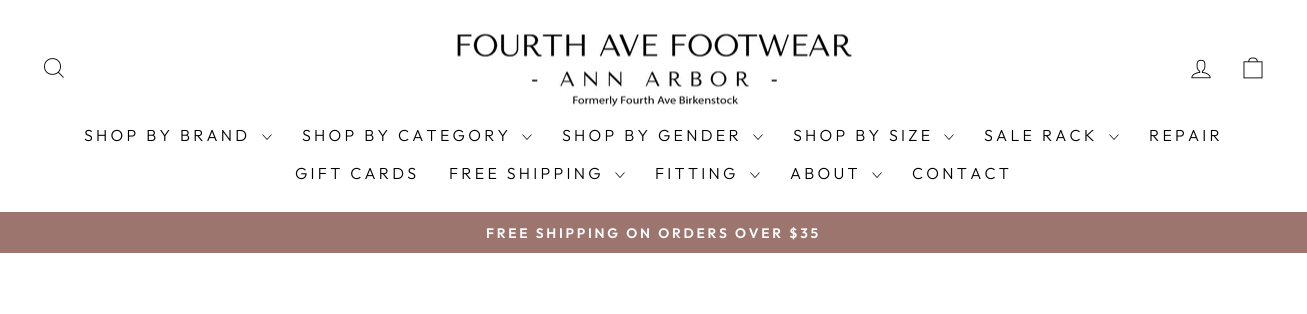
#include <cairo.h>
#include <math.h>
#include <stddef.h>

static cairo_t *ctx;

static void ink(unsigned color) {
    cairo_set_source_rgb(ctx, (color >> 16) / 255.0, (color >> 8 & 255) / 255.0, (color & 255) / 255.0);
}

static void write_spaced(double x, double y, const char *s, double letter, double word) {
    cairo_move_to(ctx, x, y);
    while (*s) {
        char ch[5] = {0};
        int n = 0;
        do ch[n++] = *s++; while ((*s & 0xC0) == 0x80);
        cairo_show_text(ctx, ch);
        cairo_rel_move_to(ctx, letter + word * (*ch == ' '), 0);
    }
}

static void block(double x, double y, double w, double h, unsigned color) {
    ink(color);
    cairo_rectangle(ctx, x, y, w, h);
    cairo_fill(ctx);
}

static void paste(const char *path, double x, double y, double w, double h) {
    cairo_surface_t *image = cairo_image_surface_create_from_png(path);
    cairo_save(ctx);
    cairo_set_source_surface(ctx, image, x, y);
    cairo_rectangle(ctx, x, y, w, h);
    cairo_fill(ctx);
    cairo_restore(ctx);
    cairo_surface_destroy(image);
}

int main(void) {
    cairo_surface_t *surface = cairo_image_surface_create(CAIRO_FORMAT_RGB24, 1307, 314);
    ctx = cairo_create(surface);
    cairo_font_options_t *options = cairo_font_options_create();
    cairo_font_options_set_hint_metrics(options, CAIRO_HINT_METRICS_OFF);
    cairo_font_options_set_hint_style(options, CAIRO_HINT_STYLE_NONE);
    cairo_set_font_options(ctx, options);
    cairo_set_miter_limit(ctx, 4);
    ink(0xffffff);
    cairo_paint(ctx);
    cairo_new_path(ctx);
    cairo_move_to(ctx, 60.5, 66.5);
    cairo_curve_to(ctx, 60.5, 77, 44.5, 77, 44.5, 66.5);
    cairo_curve_to(ctx, 44.5, 56, 60.5, 56, 60.5, 66.5);
    cairo_close_path(ctx);
    cairo_move_to(ctx, 63.5, 77.5);
    cairo_line_to(ctx, 58.5, 72.5);
    ink(0x000000);
    cairo_set_line_width(ctx, 0.9);
    cairo_stroke(ctx);
    paste("pic1.png", 457, 33, 395, 74);
    paste("pic2.png", 1191, 59, 20, 20);
    paste("pic3.png", 1243, 57, 20, 22);
    cairo_select_font_face(ctx, "Outfit Light", CAIRO_FONT_SLANT_NORMAL, CAIRO_FONT_WEIGHT_NORMAL);
    cairo_set_font_size(ctx, 16);
    write_spaced(84, 141, "SHOP BY BRAND", 3.25, 0);
    cairo_new_path(ctx);
    cairo_move_to(ctx, 262.5, 134.5);
    cairo_line_to(ctx, 267, 139.5);
    cairo_line_to(ctx, 271.5, 134.5);
    cairo_set_line_width(ctx, 0.7);
    cairo_stroke(ctx);
    write_spaced(302, 141, "SHOP BY CATEGORY", 3.25, 0);
    cairo_new_path(ctx);
    cairo_move_to(ctx, 522.5, 134.5);
    cairo_line_to(ctx, 527, 139.5);
    cairo_line_to(ctx, 531.5, 134.5);
    cairo_stroke(ctx);
    write_spaced(562, 141, "SHOP BY GENDER", 3.25, 0);
    cairo_new_path(ctx);
    cairo_move_to(ctx, 753.5, 134.5);
    cairo_line_to(ctx, 758, 139.5);
    cairo_line_to(ctx, 762.5, 134.5);
    cairo_stroke(ctx);
    write_spaced(793, 141, "SHOP BY SIZE", 3.25, 0);
    cairo_new_path(ctx);
    cairo_move_to(ctx, 944.5, 134.5);
    cairo_line_to(ctx, 949, 139.5);
    cairo_line_to(ctx, 953.5, 134.5);
    cairo_stroke(ctx);
    write_spaced(984, 141, "SALE RACK", 3.25, 0);
    cairo_new_path(ctx);
    cairo_move_to(ctx, 1109.5, 134.5);
    cairo_line_to(ctx, 1114, 139.5);
    cairo_line_to(ctx, 1118.5, 134.5);
    cairo_stroke(ctx);
    write_spaced(1149, 141, "REPAIR", 3.25, 0);
    write_spaced(295, 179, "GIFT CARDS", 3.25, 0);
    write_spaced(449, 179, "FREE SHIPPING", 3.25, 0);
    cairo_new_path(ctx);
    cairo_move_to(ctx, 615.5, 172.5);
    cairo_line_to(ctx, 620, 177.5);
    cairo_line_to(ctx, 624.5, 172.5);
    cairo_stroke(ctx);
    write_spaced(655, 179, "FITTING", 3.25, 0);
    cairo_new_path(ctx);
    cairo_move_to(ctx, 750.5, 172.5);
    cairo_line_to(ctx, 755, 177.5);
    cairo_line_to(ctx, 759.5, 172.5);
    cairo_stroke(ctx);
    write_spaced(790, 179, "ABOUT", 3.25, 0);
    cairo_new_path(ctx);
    cairo_move_to(ctx, 872.5, 172.5);
    cairo_line_to(ctx, 877, 177.5);
    cairo_line_to(ctx, 881.5, 172.5);
    cairo_stroke(ctx);
    write_spaced(912, 179, "CONTACT", 3.25, 0);
    block(0, 212, 1307, 41, 0x9c756f);
    cairo_select_font_face(ctx, "Outfit SemiBold", CAIRO_FONT_SLANT_NORMAL, CAIRO_FONT_WEIGHT_NORMAL);
    cairo_set_font_size(ctx, 13.75);
    ink(0xffffff);
    write_spaced(486, 238, "FREE SHIPPING ON ORDERS OVER $35", 2.75, 0);
    cairo_surface_write_to_png(surface, "screenshot.png");
    cairo_font_options_destroy(options);
    cairo_destroy(ctx);
    cairo_surface_destroy(surface);
    return 0;
}
